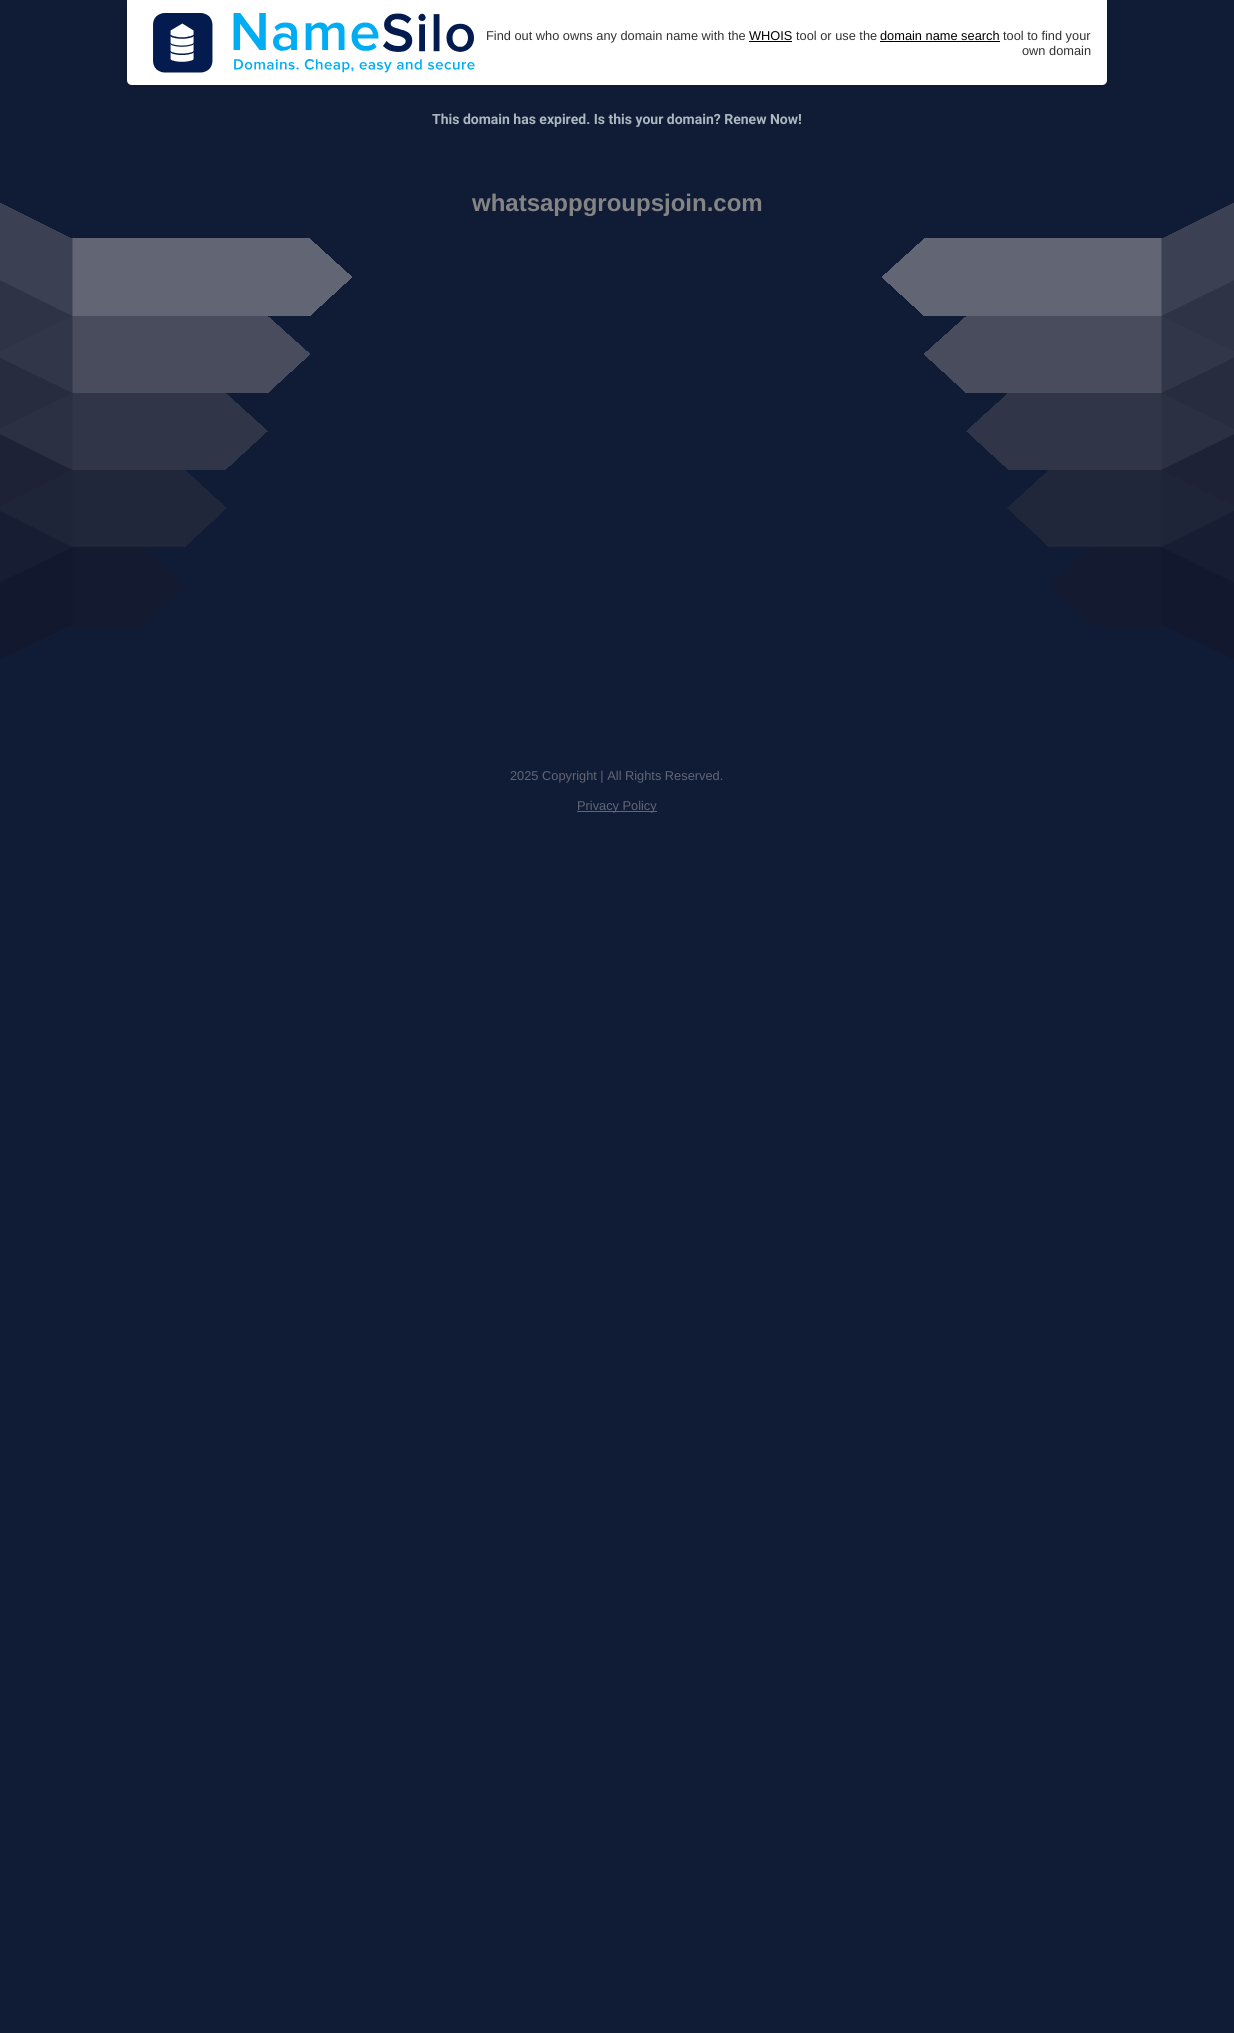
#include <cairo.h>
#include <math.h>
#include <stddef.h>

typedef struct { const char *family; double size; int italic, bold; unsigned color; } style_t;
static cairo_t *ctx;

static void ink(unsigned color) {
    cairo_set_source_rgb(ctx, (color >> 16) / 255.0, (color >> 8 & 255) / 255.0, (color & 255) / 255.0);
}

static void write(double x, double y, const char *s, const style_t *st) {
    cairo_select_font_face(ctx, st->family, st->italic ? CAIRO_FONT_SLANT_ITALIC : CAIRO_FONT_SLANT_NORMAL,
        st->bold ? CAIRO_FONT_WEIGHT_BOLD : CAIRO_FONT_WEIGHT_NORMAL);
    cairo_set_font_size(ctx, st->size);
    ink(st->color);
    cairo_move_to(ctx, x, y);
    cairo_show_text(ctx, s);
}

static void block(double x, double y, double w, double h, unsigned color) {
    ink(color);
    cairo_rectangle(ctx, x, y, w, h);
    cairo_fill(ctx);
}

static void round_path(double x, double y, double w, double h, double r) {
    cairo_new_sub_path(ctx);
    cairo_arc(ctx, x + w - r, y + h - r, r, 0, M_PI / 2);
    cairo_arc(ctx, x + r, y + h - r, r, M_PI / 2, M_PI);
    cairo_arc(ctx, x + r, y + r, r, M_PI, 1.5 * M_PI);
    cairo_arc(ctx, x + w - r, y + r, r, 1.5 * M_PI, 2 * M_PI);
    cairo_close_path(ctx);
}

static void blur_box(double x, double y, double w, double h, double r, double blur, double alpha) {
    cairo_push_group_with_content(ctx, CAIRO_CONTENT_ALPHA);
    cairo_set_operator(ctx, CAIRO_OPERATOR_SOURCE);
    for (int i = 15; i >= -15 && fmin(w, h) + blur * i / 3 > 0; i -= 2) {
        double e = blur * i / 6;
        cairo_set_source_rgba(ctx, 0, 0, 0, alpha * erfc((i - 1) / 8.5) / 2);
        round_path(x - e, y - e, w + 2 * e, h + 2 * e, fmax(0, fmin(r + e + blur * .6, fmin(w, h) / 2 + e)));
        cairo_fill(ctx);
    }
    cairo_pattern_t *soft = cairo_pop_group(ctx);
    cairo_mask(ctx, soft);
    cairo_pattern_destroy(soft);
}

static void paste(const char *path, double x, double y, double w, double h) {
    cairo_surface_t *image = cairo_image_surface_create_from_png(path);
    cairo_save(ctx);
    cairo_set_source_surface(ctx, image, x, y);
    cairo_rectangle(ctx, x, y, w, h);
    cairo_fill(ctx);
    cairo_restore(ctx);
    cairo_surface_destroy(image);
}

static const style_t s1 = {"Liberation Sans", 12.8, 0, 0, 0x313131};
static const style_t s2 = {"Liberation Sans", 12.8, 0, 0, 0x000000};
static const style_t s3 = {"Roboto", 14, 0, 1, 0xabb8bf};
static const style_t s4 = {"Liberation Sans", 24, 0, 1, 0x848484};
static const style_t s5 = {"Liberation Sans", 12.8, 0, 0, 0x626574};

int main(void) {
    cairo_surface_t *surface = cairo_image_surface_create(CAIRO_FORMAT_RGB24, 1234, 2033);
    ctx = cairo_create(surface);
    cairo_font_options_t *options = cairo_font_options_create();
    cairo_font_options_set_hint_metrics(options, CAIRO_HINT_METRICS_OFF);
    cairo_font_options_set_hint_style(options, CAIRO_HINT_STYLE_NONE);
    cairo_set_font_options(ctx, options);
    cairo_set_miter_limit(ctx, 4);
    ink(0x101c36);
    cairo_paint(ctx);
    ink(0x000000);
    blur_box(127, 1, 980, 85, 5, 3, 0.2);
    ink(0xffffff);
    cairo_new_path(ctx);
    cairo_move_to(ctx, 127, 0);
    cairo_line_to(ctx, 1107, 0);
    cairo_line_to(ctx, 1107, 80);
    cairo_curve_to(ctx, 1107, 83, 1105, 85, 1102, 85);
    cairo_line_to(ctx, 132, 85);
    cairo_curve_to(ctx, 129, 85, 127, 83, 127, 80);
    cairo_close_path(ctx);
    cairo_fill(ctx);
    paste("pic1.png", 153, 13, 322, 60);
    write(486, 40, "Find out who owns any domain name with the", &s1);
    write(749, 40, "WHOIS", &s2);
    block(749, 41, 43, 1, 0x000000);
    write(796, 40, "tool or use the", &s1);
    write(880, 40, "domain name search", &s2);
    block(880, 41, 120, 1, 0x000000);
    write(1003, 40, "tool to find your", &s1);
    write(1022, 55, "own domain", &s1);
    write(432, 124, "This domain has expired. Is this your domain? Renew Now!", &s3);
    paste("pic2.png", 0, 203, 1234, 456);
    write(472, 211, "whatsappgroupsjoin.com", &s4);
    write(510, 780, "2025 Copyright | All Rights Reserved.", &s5);
    block(577, 811, 80, 1, 0x626574);
    write(577, 810, "Privacy Policy", &s5);
    cairo_surface_write_to_png(surface, "screenshot.png");
    cairo_font_options_destroy(options);
    cairo_destroy(ctx);
    cairo_surface_destroy(surface);
    return 0;
}
